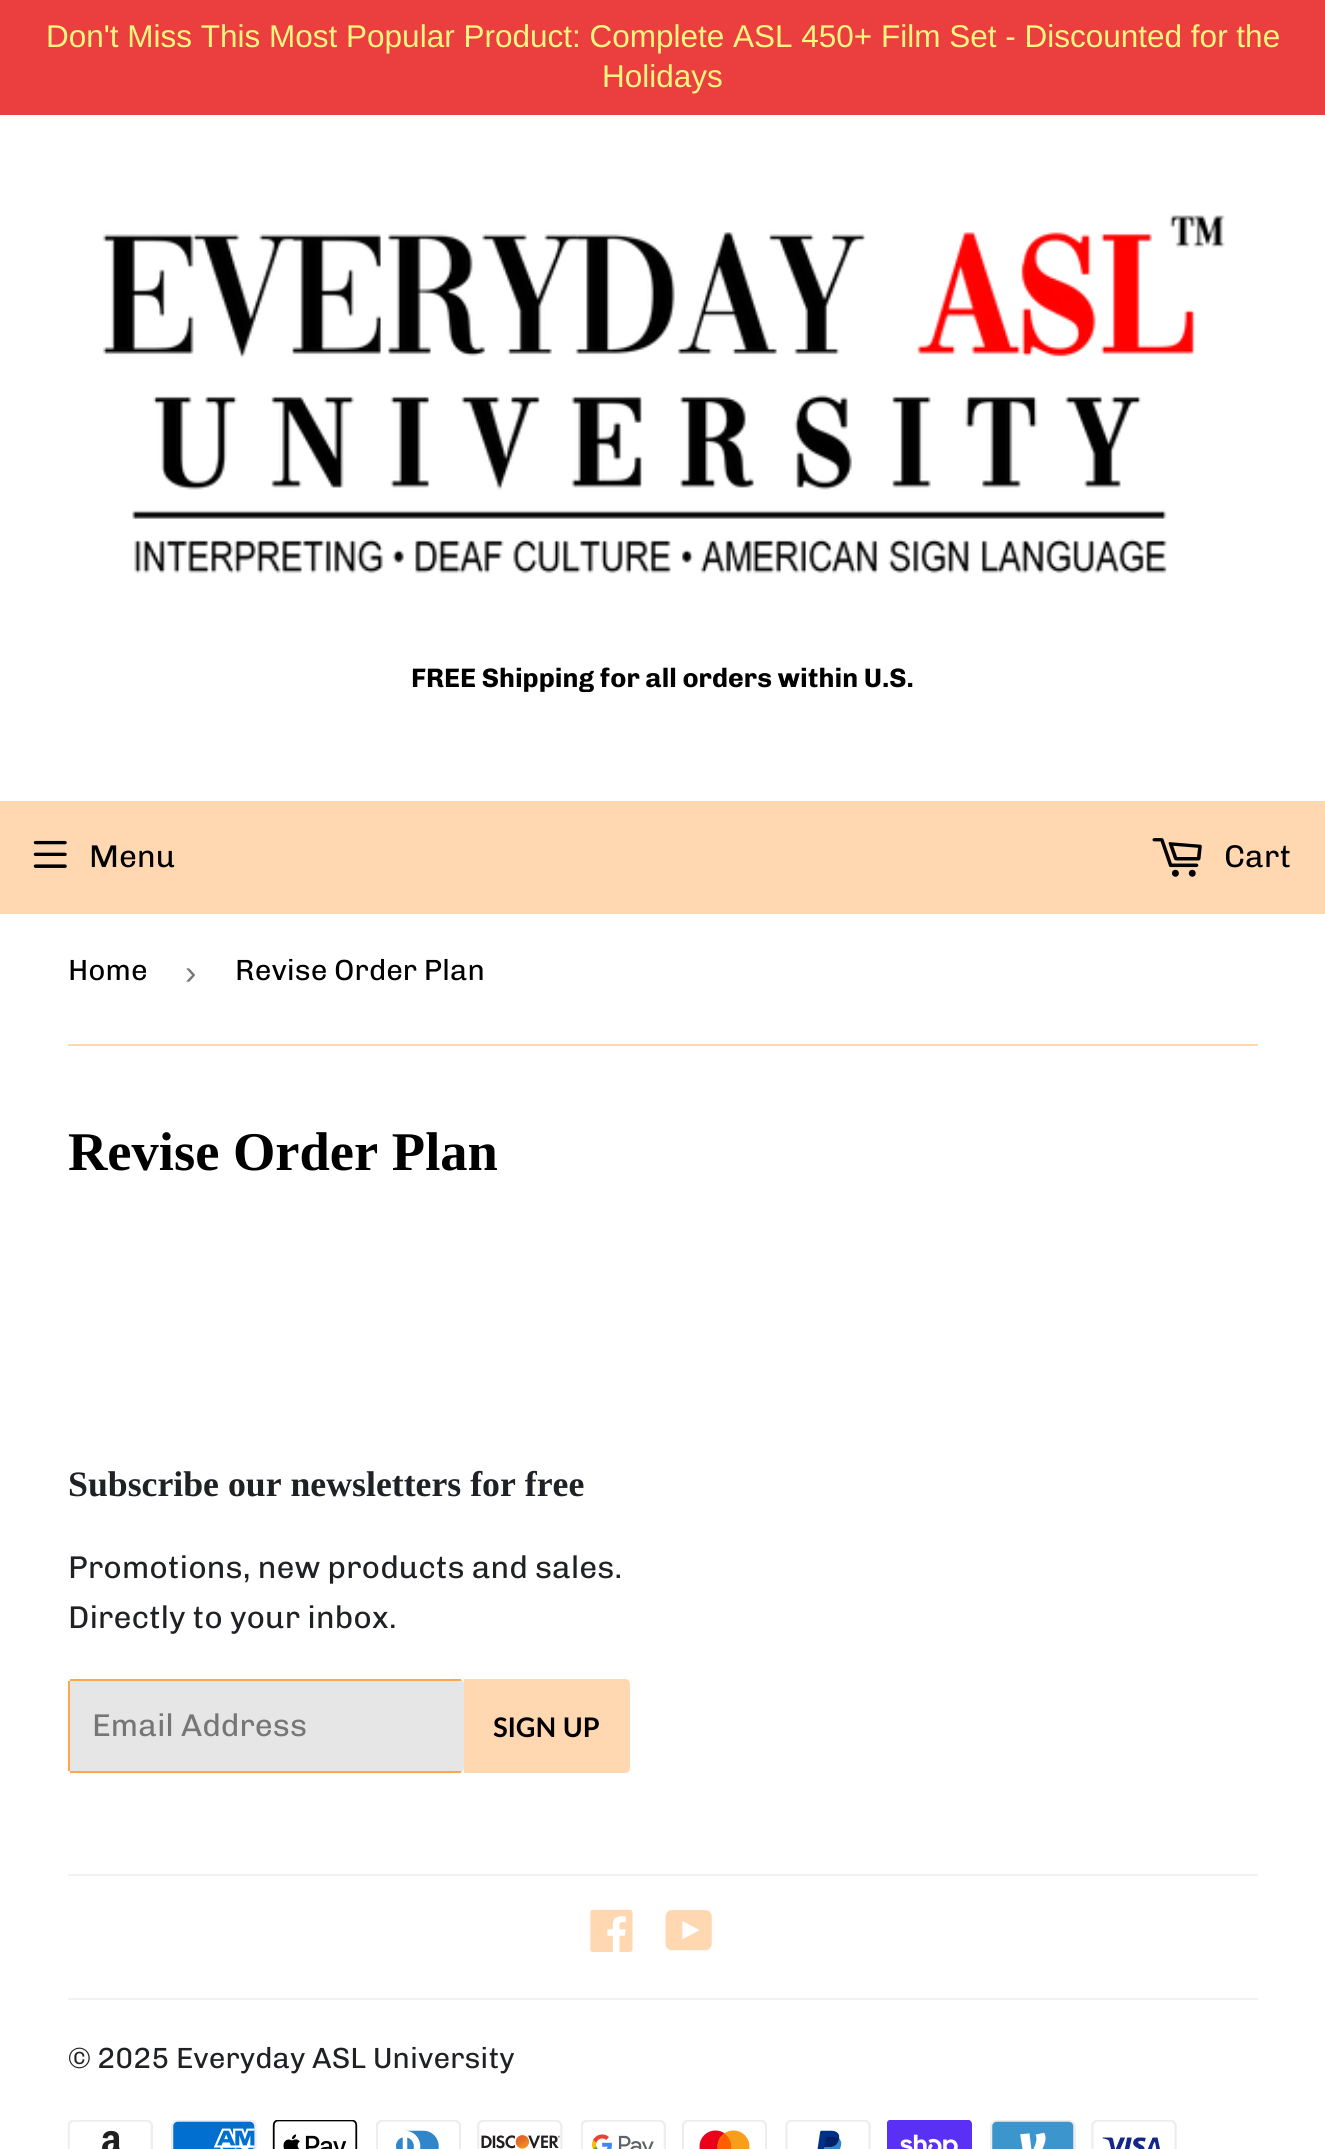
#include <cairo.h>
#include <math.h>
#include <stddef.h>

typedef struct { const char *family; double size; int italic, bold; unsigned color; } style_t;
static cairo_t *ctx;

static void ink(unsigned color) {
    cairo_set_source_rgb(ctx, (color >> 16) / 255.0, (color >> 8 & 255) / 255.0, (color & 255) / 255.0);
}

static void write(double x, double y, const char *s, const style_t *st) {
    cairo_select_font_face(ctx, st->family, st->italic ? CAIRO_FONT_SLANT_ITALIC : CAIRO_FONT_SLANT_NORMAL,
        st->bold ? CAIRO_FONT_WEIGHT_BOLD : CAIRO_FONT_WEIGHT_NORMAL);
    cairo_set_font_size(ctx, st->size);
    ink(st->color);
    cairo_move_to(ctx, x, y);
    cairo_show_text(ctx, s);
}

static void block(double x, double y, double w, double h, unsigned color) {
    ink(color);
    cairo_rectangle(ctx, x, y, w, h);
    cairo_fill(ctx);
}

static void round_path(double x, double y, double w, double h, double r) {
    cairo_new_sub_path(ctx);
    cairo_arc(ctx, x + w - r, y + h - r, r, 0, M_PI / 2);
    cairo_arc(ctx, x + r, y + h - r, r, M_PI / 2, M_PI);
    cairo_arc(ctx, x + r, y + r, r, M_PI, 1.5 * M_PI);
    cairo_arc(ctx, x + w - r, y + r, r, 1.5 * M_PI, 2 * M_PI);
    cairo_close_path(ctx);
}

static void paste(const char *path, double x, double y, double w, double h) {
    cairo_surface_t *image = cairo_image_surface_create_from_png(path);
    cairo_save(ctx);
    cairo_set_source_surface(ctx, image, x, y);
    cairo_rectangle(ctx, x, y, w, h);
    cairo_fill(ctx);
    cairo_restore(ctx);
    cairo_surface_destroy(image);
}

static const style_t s1 = {"Liberation Sans", 31.5, 0, 0, 0xfff681};
static const style_t s2 = {"Chivo", 26.75, 0, 1, 0x000000};
static const style_t s3 = {"Chivo", 31.5, 0, 0, 0x000000};
static const style_t s4 = {"Chivo", 29.25, 0, 0, 0x000000};
static const style_t s5 = {"Liberation Sans", 34, 0, 0, 0x767676};
static const style_t s6 = {"Liberation Serif", 54.5, 0, 1, 0x000000};
static const style_t s7 = {"Liberation Serif", 35.75, 0, 1, 0x1f2124};
static const style_t s8 = {"Chivo", 31.5, 0, 0, 0x1f2124};
static const style_t s9 = {"Chivo", 31.5, 0, 0, 0x767676};
static const style_t s10 = {"Lato", 27, 0, 1, 0x000000};
static const style_t s11 = {"Chivo", 29.25, 0, 0, 0x1f2124};

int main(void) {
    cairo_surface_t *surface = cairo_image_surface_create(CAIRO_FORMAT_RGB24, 1325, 2149);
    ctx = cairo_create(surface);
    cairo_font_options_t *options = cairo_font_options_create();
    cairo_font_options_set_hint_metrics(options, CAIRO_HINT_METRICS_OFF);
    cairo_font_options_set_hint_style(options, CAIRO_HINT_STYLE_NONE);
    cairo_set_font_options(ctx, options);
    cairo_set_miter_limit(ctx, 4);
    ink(0xffffff);
    cairo_paint(ctx);
    block(0, 0, 1325, 115, 0xeb3e3e);
    write(46, 47, "Don't Miss This Most Popular Product: Complete ASL 450+ Film Set - Discounted for the", &s1);
    write(602, 87, "Holidays", &s1);
    paste("pic1.png", 102, 215, 1123, 359);
    write(411, 687, "FREE Shipping for all orders within U.S.", &s2);
    block(0, 801, 1325, 113, 0xffd8b1);
    paste("pic2.png", 33, 840, 34, 28);
    write(89, 867, "Menu", &s3);
    paste("pic3.png", 1152, 838, 50, 39);
    write(1224, 867, "Cart", &s3);
    block(68, 1044, 1190, 2, 0xffd8b1);
    write(68, 980, "Home", &s4);
    write(185, 984, "›", &s5);
    write(235, 980, "Revise Order Plan", &s4);
    write(68, 1170, "Revise Order Plan", &s6);
    write(68, 1496, "Subscribe our newsletters for free", &s7);
    write(68, 1578, "Promotions, new products and sales.", &s8);
    write(68, 1628, "Directly to your inbox.", &s8);
    ink(0xe6e6e6);
    round_path(68, 1679, 396, 94, 5);
    cairo_fill(ctx);
    block(70, 1679, 391, 2, 0xffa54b);
    block(70, 1771, 391, 2, 0xffa54b);
    block(68, 1681, 2, 90, 0xffa54b);
    write(92, 1736, "Email Address", &s9);
    ink(0xffd8b1);
    cairo_new_path(ctx);
    cairo_move_to(ctx, 464, 1679);
    cairo_line_to(ctx, 625, 1679);
    cairo_curve_to(ctx, 628, 1679, 630, 1681, 630, 1684);
    cairo_line_to(ctx, 630, 1768);
    cairo_curve_to(ctx, 630, 1771, 628, 1773, 625, 1773);
    cairo_line_to(ctx, 464, 1773);
    cairo_close_path(ctx);
    cairo_fill(ctx);
    write(493, 1737, "SIGN UP", &s10);
    block(68, 1874, 1190, 2, 0xf2f2f2);
    paste("pic4.png", 590, 1909, 43, 43);
    paste("pic5.png", 665, 1910, 47, 41);
    block(68, 1998, 1190, 2, 0xf2f2f2);
    write(68, 2068, "© 2025 Everyday ASL University", &s11);
    paste("pic6.png", 68, 2120, 85, 29);
    paste("pic7.png", 171, 2120, 86, 29);
    paste("pic8.png", 272, 2120, 86, 29);
    paste("pic9.png", 376, 2120, 85, 29);
    paste("pic10.png", 477, 2120, 86, 29);
    paste("pic11.png", 581, 2120, 85, 29);
    paste("pic12.png", 682, 2120, 85, 29);
    paste("pic13.png", 785, 2120, 86, 29);
    paste("pic14.png", 887, 2120, 85, 29);
    paste("pic15.png", 990, 2120, 86, 29);
    paste("pic16.png", 1091, 2120, 86, 29);
    cairo_surface_write_to_png(surface, "screenshot.png");
    cairo_font_options_destroy(options);
    cairo_destroy(ctx);
    cairo_surface_destroy(surface);
    return 0;
}
